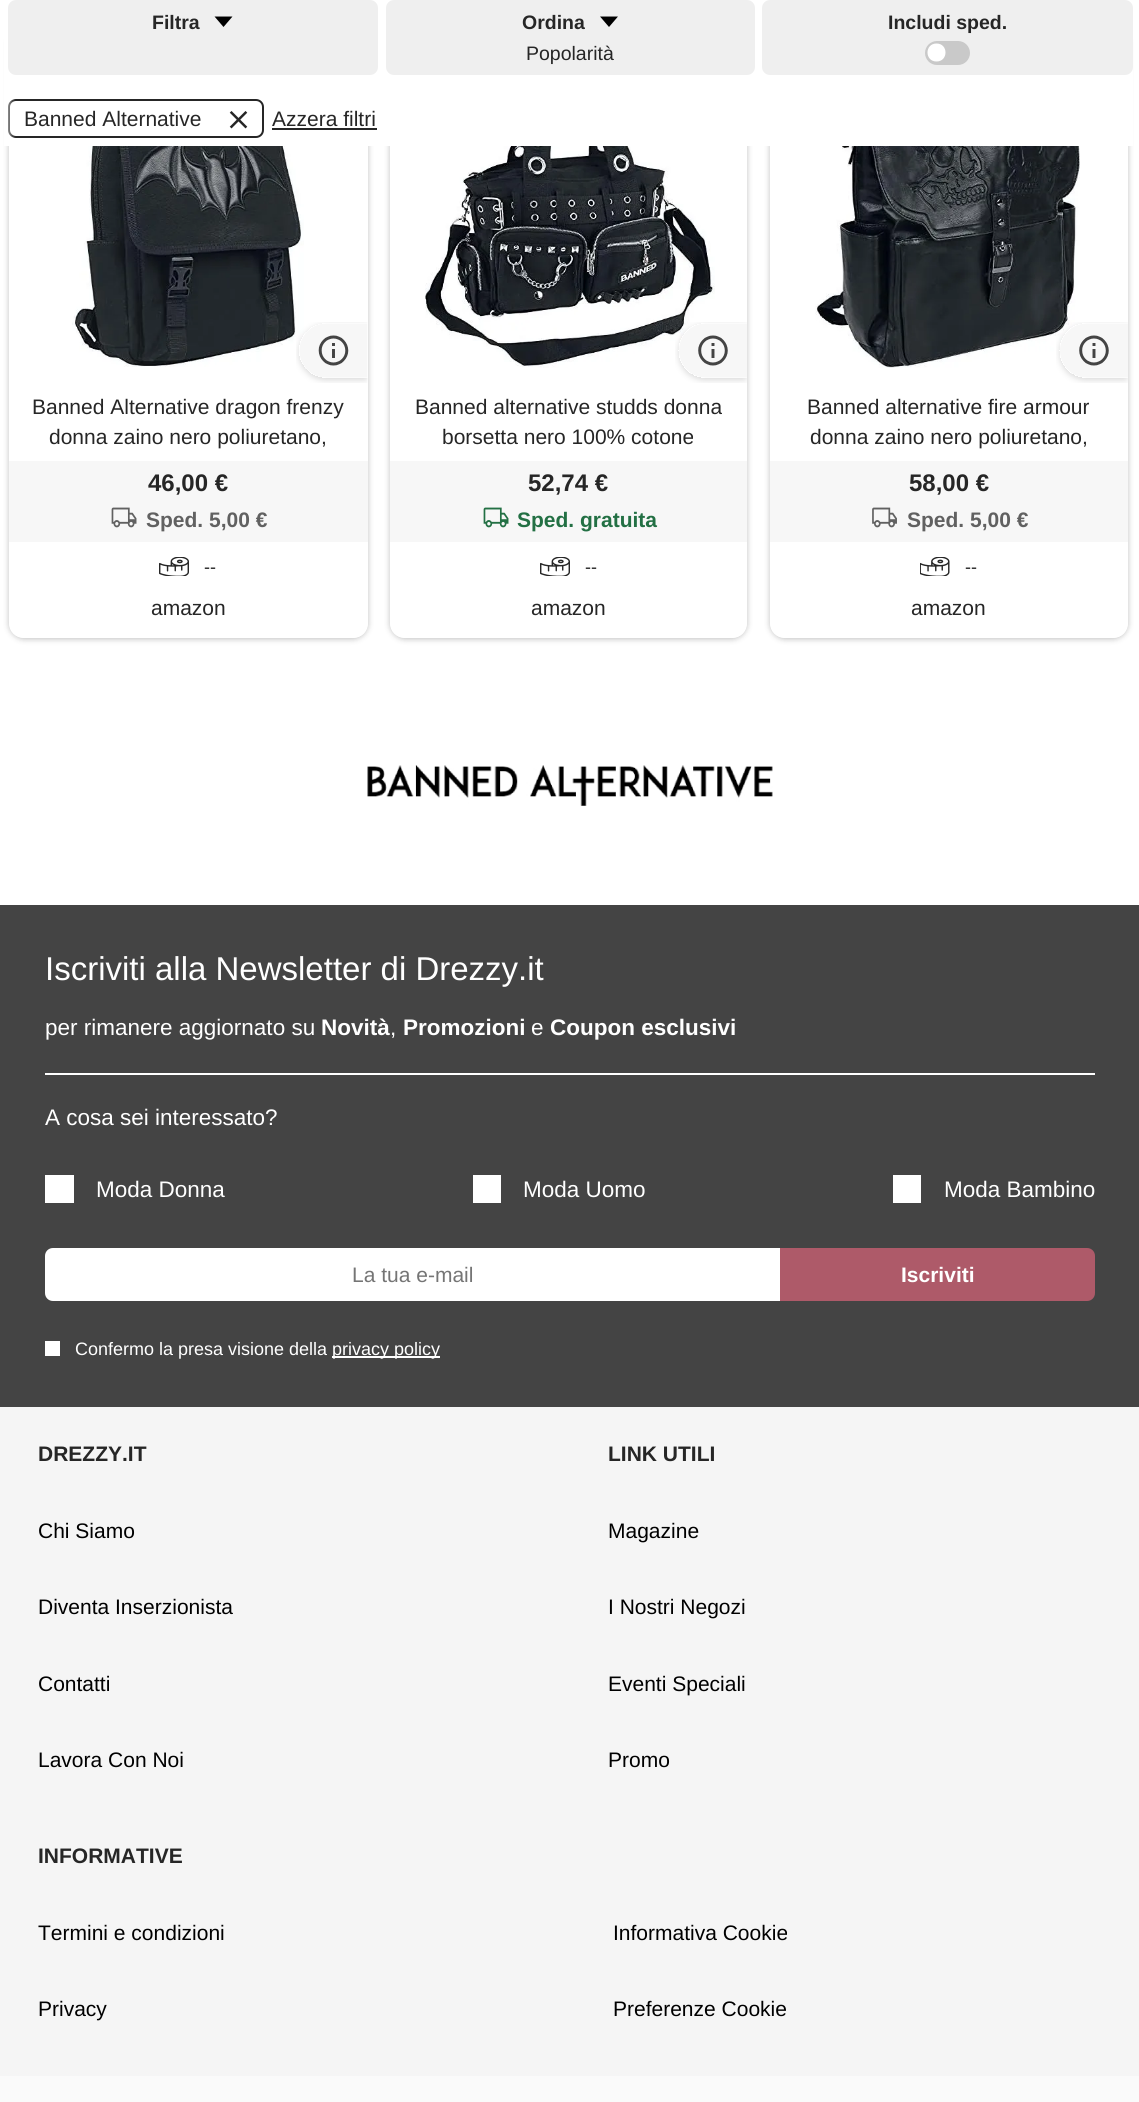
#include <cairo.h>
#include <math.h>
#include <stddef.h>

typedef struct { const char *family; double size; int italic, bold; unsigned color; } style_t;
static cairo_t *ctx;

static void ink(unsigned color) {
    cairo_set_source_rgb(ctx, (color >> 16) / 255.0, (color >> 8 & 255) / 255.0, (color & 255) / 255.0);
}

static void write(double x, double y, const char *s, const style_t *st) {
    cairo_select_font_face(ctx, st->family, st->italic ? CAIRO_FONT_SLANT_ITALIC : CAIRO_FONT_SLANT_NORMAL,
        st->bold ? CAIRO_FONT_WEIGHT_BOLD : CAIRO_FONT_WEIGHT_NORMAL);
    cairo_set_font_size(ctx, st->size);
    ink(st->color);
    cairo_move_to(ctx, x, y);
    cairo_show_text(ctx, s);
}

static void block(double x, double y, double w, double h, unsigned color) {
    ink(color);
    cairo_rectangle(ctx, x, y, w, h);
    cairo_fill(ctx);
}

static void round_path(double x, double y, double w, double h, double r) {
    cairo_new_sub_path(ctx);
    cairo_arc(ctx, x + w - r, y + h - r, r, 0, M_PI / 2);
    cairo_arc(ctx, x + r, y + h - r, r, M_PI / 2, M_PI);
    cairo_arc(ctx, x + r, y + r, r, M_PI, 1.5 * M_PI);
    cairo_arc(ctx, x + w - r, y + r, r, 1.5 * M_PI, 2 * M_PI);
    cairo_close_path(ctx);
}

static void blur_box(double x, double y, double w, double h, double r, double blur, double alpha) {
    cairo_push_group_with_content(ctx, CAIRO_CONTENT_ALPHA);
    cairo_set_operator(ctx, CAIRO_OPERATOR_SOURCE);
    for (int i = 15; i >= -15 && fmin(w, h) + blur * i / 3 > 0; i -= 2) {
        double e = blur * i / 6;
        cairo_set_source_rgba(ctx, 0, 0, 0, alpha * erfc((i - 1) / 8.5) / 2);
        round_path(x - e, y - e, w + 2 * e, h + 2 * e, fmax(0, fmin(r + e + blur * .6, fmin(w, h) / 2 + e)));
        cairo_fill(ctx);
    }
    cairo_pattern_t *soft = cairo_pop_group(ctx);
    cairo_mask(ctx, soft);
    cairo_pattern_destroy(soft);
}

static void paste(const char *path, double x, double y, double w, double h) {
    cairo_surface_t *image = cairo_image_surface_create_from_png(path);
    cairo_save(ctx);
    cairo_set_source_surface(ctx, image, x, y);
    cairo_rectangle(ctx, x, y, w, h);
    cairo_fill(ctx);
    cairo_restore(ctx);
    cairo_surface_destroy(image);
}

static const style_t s1 = {"Liberation Sans", 19.5, 0, 1, 0x262626};
static const style_t s2 = {"Liberation Sans", 19.5, 0, 0, 0x262626};
static const style_t s3 = {"Liberation Sans", 21, 0, 0, 0x262626};
static const style_t s4 = {"Liberation Sans", 24, 0, 1, 0x262626};
static const style_t s5 = {"Liberation Sans", 21, 0, 1, 0x616161};
static const style_t s6 = {"Liberation Sans", 18, 0, 0, 0x262626};
static const style_t s7 = {"Liberation Sans", 21, 0, 1, 0x237044};
static const style_t s8 = {"Liberation Sans", 33, 0, 0, 0xffffff};
static const style_t s9 = {"Liberation Sans", 22.5, 0, 0, 0xffffff};
static const style_t s10 = {"Liberation Sans", 22.5, 0, 1, 0xffffff};
static const style_t s11 = {"Liberation Sans", 21, 0, 0, 0x757575};
static const style_t s12 = {"Liberation Sans", 21, 0, 1, 0xffffff};
static const style_t s13 = {"Liberation Sans", 18, 0, 0, 0xffffff};
static const style_t s14 = {"Liberation Sans", 21, 0, 1, 0x262626};
static const style_t s15 = {"Liberation Sans", 21, 0, 0, 0x000000};

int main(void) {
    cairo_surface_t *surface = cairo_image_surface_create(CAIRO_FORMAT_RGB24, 1139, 2102);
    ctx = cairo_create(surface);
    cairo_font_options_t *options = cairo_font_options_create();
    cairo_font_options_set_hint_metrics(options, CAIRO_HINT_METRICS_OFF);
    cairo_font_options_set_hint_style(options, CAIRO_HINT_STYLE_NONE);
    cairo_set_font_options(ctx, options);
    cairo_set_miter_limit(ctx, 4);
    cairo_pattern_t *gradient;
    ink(0xffffff);
    cairo_paint(ctx);
    cairo_save(ctx);
    cairo_set_fill_rule(ctx, CAIRO_FILL_RULE_EVEN_ODD);
    cairo_new_path(ctx);
    cairo_move_to(ctx, 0, 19);
    cairo_line_to(ctx, 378, 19);
    cairo_line_to(ctx, 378, 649);
    cairo_line_to(ctx, 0, 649);
    cairo_close_path(ctx);
    cairo_move_to(ctx, 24, 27);
    cairo_line_to(ctx, 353, 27);
    cairo_curve_to(ctx, 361.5, 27, 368, 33.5, 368, 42);
    cairo_line_to(ctx, 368, 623);
    cairo_curve_to(ctx, 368, 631.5, 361.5, 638, 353, 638);
    cairo_line_to(ctx, 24, 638);
    cairo_curve_to(ctx, 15.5, 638, 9, 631.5, 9, 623);
    cairo_line_to(ctx, 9, 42);
    cairo_curve_to(ctx, 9, 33.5, 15.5, 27, 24, 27);
    cairo_close_path(ctx);
    cairo_clip(ctx);
    ink(0x000000);
    blur_box(9, 29, 359, 610, 15, 3, 0.25);
    cairo_restore(ctx);
    cairo_save(ctx);
    cairo_set_fill_rule(ctx, CAIRO_FILL_RULE_EVEN_ODD);
    cairo_new_path(ctx);
    cairo_move_to(ctx, 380, 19);
    cairo_line_to(ctx, 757, 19);
    cairo_line_to(ctx, 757, 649);
    cairo_line_to(ctx, 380, 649);
    cairo_close_path(ctx);
    cairo_move_to(ctx, 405, 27);
    cairo_line_to(ctx, 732, 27);
    cairo_curve_to(ctx, 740.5, 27, 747, 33.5, 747, 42);
    cairo_line_to(ctx, 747, 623);
    cairo_curve_to(ctx, 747, 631.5, 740.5, 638, 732, 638);
    cairo_line_to(ctx, 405, 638);
    cairo_curve_to(ctx, 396.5, 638, 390, 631.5, 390, 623);
    cairo_line_to(ctx, 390, 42);
    cairo_curve_to(ctx, 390, 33.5, 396.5, 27, 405, 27);
    cairo_close_path(ctx);
    cairo_clip(ctx);
    ink(0x000000);
    blur_box(390, 29, 357, 610, 15, 3, 0.25);
    cairo_restore(ctx);
    cairo_save(ctx);
    cairo_set_fill_rule(ctx, CAIRO_FILL_RULE_EVEN_ODD);
    cairo_new_path(ctx);
    cairo_move_to(ctx, 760, 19);
    cairo_line_to(ctx, 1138, 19);
    cairo_line_to(ctx, 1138, 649);
    cairo_line_to(ctx, 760, 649);
    cairo_close_path(ctx);
    cairo_move_to(ctx, 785, 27);
    cairo_line_to(ctx, 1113, 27);
    cairo_curve_to(ctx, 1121.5, 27, 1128, 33.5, 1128, 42);
    cairo_line_to(ctx, 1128, 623);
    cairo_curve_to(ctx, 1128, 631.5, 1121.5, 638, 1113, 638);
    cairo_line_to(ctx, 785, 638);
    cairo_curve_to(ctx, 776.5, 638, 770, 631.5, 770, 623);
    cairo_line_to(ctx, 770, 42);
    cairo_curve_to(ctx, 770, 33.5, 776.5, 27, 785, 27);
    cairo_close_path(ctx);
    cairo_clip(ctx);
    ink(0x000000);
    blur_box(770, 29, 358, 610, 15, 3, 0.25);
    cairo_restore(ctx);
    block(4, 24, 1129, 122, 0xffffff);
    ink(0xefefef);
    round_path(9, 1, 368, 73, 7);
    cairo_fill_preserve(ctx);
    cairo_stroke(ctx);
    write(152, 29, "Filtra", &s1);
    ink(0x000000);
    cairo_new_path(ctx);
    cairo_move_to(ctx, 214.5, 16.5);
    cairo_line_to(ctx, 232.5, 16.5);
    cairo_line_to(ctx, 223.5, 27);
    cairo_close_path(ctx);
    cairo_fill(ctx);
    ink(0xefefef);
    round_path(387, 1, 367, 73, 7);
    cairo_fill_preserve(ctx);
    cairo_stroke(ctx);
    write(522, 29, "Ordina", &s1);
    ink(0x000000);
    cairo_new_path(ctx);
    cairo_move_to(ctx, 600, 16.5);
    cairo_line_to(ctx, 618, 16.5);
    cairo_line_to(ctx, 609, 27);
    cairo_close_path(ctx);
    cairo_fill(ctx);
    write(526, 60, "Popolarità", &s2);
    ink(0xefefef);
    round_path(763, 1, 369, 73, 7);
    cairo_fill_preserve(ctx);
    cairo_stroke(ctx);
    write(888, 29, "Includi sped.", &s1);
    ink(0xc9c9c9);
    round_path(925, 41, 45, 24, 12);
    cairo_fill(ctx);
    ink(0xffffff);
    cairo_set_fill_rule(ctx, CAIRO_FILL_RULE_EVEN_ODD);
    cairo_new_path(ctx);
    cairo_move_to(ctx, 936.5, 61.5);
    cairo_curve_to(ctx, 948.5, 61.5, 948.5, 43.5, 936.5, 43.5);
    cairo_curve_to(ctx, 924.5, 43.5, 924.5, 61.5, 936.5, 61.5);
    cairo_close_path(ctx);
    cairo_fill(ctx);
    round_path(9, 100, 254, 37, 7);
    ink(0x262626);
    cairo_stroke(ctx);
    gradient = cairo_pattern_create_linear(15, 111, 0, 111);
    cairo_pattern_add_color_stop_rgba(gradient, 0, 1, 1, 1, 0);
    cairo_pattern_add_color_stop_rgba(gradient, 1, 1, 1, 1, 1);
    cairo_set_source(ctx, gradient);
    cairo_pattern_destroy(gradient);
    cairo_rectangle(ctx, 8, 99, 7, 39);
    cairo_fill(ctx);
    write(24, 126, "Banned Alternative", &s3);
    paste("pic1.png", 229, 111, 19, 18);
    write(272, 126, "Azzera filtri", &s3);
    block(272, 128, 105, 2, 0x262626);
    paste("pic2.png", 72, 146, 232, 221);
    paste("pic3.png", 296, 322, 72, 61);
    write(32, 414, "Banned Alternative dragon frenzy", &s3);
    write(49, 444, "donna zaino nero poliuretano,", &s3);
    block(9, 461, 359, 81, 0xf7f7f7);
    write(148, 491, "46,00 €", &s4);
    paste("pic4.png", 111, 507, 26, 21);
    write(146, 527, "Sped. 5,00 €", &s5);
    paste("pic5.png", 159, 557, 30, 19);
    write(204, 573, "--", &s6);
    write(151, 615, "amazon", &s3);
    paste("pic6.png", 425, 146, 290, 222);
    paste("pic7.png", 675, 322, 72, 61);
    write(415, 414, "Banned alternative studds donna", &s3);
    write(442, 444, "borsetta nero 100% cotone", &s3);
    block(390, 461, 357, 81, 0xf7f7f7);
    write(528, 491, "52,74 €", &s4);
    paste("pic8.png", 483, 507, 26, 21);
    write(517, 527, "Sped. gratuita", &s7);
    paste("pic5.png", 540, 557, 30, 19);
    write(585, 573, "--", &s6);
    write(531, 615, "amazon", &s3);
    paste("pic9.png", 815, 146, 265, 222);
    paste("pic10.png", 1056, 322, 72, 61);
    write(807, 414, "Banned alternative fire armour", &s3);
    write(810, 444, "donna zaino nero poliuretano,", &s3);
    block(770, 461, 358, 81, 0xf7f7f7);
    write(909, 491, "58,00 €", &s4);
    paste("pic11.png", 872, 507, 25, 21);
    write(907, 527, "Sped. 5,00 €", &s5);
    paste("pic12.png", 920, 557, 30, 19);
    write(965, 573, "--", &s6);
    write(911, 615, "amazon", &s3);
    paste("pic13.png", 367, 765, 406, 41);
    block(0, 1407, 1139, 669, 0xf5f5f5);
    block(0, 905, 1139, 502, 0x444444);
    write(45, 980, "Iscriviti alla Newsletter di Drezzy.it", &s8);
    write(45, 1035, "per rimanere aggiornato su", &s9);
    write(321, 1035, "Novità", &s10);
    write(390, 1035, ",", &s9);
    write(403, 1035, "Promozioni", &s10);
    write(531, 1035, "e", &s9);
    write(550, 1035, "Coupon esclusivi", &s10);
    block(45, 1073, 1050, 2, 0xffffff);
    write(45, 1125, "A cosa sei interessato?", &s9);
    cairo_rectangle(ctx, 46.5, 1176.5, 26, 25);
    cairo_fill_preserve(ctx);
    cairo_set_line_width(ctx, 3);
    cairo_stroke(ctx);
    write(96, 1197, "Moda Donna", &s9);
    cairo_rectangle(ctx, 474.5, 1176.5, 25, 25);
    cairo_fill_preserve(ctx);
    cairo_stroke(ctx);
    write(523, 1197, "Moda Uomo", &s9);
    cairo_rectangle(ctx, 894.5, 1176.5, 25, 25);
    cairo_fill_preserve(ctx);
    cairo_stroke(ctx);
    write(944, 1197, "Moda Bambino", &s9);
    cairo_new_path(ctx);
    cairo_move_to(ctx, 53, 1248);
    cairo_line_to(ctx, 780, 1248);
    cairo_line_to(ctx, 780, 1301);
    cairo_line_to(ctx, 53, 1301);
    cairo_curve_to(ctx, 48.5, 1301, 45, 1297.5, 45, 1293);
    cairo_line_to(ctx, 45, 1256);
    cairo_curve_to(ctx, 45, 1251.5, 48.5, 1248, 53, 1248);
    cairo_close_path(ctx);
    cairo_fill(ctx);
    write(352, 1282, "La tua e-mail", &s11);
    ink(0xae5a69);
    cairo_new_path(ctx);
    cairo_move_to(ctx, 780, 1248);
    cairo_line_to(ctx, 1087, 1248);
    cairo_curve_to(ctx, 1091.5, 1248, 1095, 1251.5, 1095, 1256);
    cairo_line_to(ctx, 1095, 1293);
    cairo_curve_to(ctx, 1095, 1297.5, 1091.5, 1301, 1087, 1301);
    cairo_line_to(ctx, 780, 1301);
    cairo_close_path(ctx);
    cairo_fill(ctx);
    write(901, 1282, "Iscriviti", &s12);
    block(45, 1341, 15, 15, 0xffffff);
    write(75, 1355, "Confermo la presa visione della", &s13);
    block(332, 1356, 108, 2, 0xffffff);
    write(332, 1355, "privacy policy", &s13);
    write(38, 1461, "DREZZY.IT", &s14);
    write(38, 1538, "Chi Siamo", &s15);
    write(38, 1614, "Diventa Inserzionista", &s15);
    write(38, 1691, "Contatti", &s15);
    write(38, 1767, "Lavora Con Noi", &s15);
    write(608, 1461, "LINK UTILI", &s14);
    write(608, 1538, "Magazine", &s15);
    write(608, 1614, "I Nostri Negozi", &s15);
    write(608, 1691, "Eventi Speciali", &s15);
    write(608, 1767, "Promo", &s15);
    write(38, 1863, "INFORMATIVE", &s14);
    write(38, 1940, "Termini e condizioni", &s15);
    write(613, 1940, "Informativa Cookie", &s15);
    write(38, 2016, "Privacy", &s15);
    write(613, 2016, "Preferenze Cookie", &s15);
    block(0, 2076, 1139, 26, 0xfafafa);
    cairo_surface_write_to_png(surface, "screenshot.png");
    cairo_font_options_destroy(options);
    cairo_destroy(ctx);
    cairo_surface_destroy(surface);
    return 0;
}
